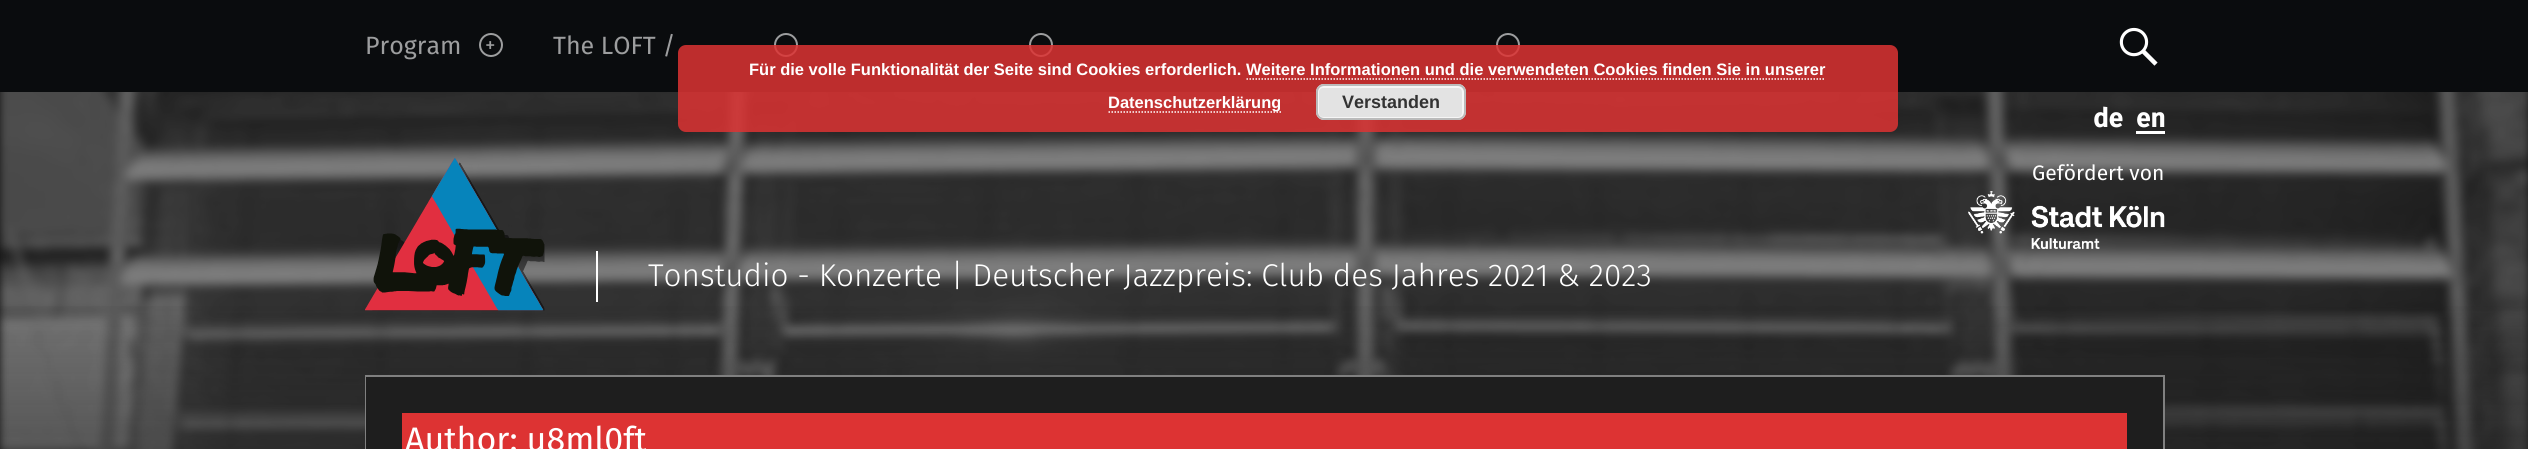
#include <cairo.h>
#include <math.h>
#include <stddef.h>

typedef struct { const char *family; double size; int italic, bold; unsigned color; } style_t;
static cairo_t *ctx;

static void ink(unsigned color) {
    cairo_set_source_rgb(ctx, (color >> 16) / 255.0, (color >> 8 & 255) / 255.0, (color & 255) / 255.0);
}

static void write(double x, double y, const char *s, const style_t *st) {
    cairo_select_font_face(ctx, st->family, st->italic ? CAIRO_FONT_SLANT_ITALIC : CAIRO_FONT_SLANT_NORMAL,
        st->bold ? CAIRO_FONT_WEIGHT_BOLD : CAIRO_FONT_WEIGHT_NORMAL);
    cairo_set_font_size(ctx, st->size);
    ink(st->color);
    cairo_move_to(ctx, x, y);
    cairo_show_text(ctx, s);
}

static void block(double x, double y, double w, double h, unsigned color) {
    ink(color);
    cairo_rectangle(ctx, x, y, w, h);
    cairo_fill(ctx);
}

static void round_path(double x, double y, double w, double h, double r) {
    cairo_new_sub_path(ctx);
    cairo_arc(ctx, x + w - r, y + h - r, r, 0, M_PI / 2);
    cairo_arc(ctx, x + r, y + h - r, r, M_PI / 2, M_PI);
    cairo_arc(ctx, x + r, y + r, r, M_PI, 1.5 * M_PI);
    cairo_arc(ctx, x + w - r, y + r, r, 1.5 * M_PI, 2 * M_PI);
    cairo_close_path(ctx);
}

static void paste(const char *path, double x, double y, double w, double h) {
    cairo_surface_t *image = cairo_image_surface_create_from_png(path);
    cairo_save(ctx);
    cairo_set_source_surface(ctx, image, x, y);
    cairo_rectangle(ctx, x, y, w, h);
    cairo_fill(ctx);
    cairo_restore(ctx);
    cairo_surface_destroy(image);
}

static const style_t s1 = {"Fira Sans", 25, 0, 0, 0x9d9e9f};
static const style_t s2 = {"Fira Sans", 21, 0, 0, 0x9d9e9f};
static const style_t s3 = {"Fira Sans", 26, 0, 1, 0xffffff};
static const style_t s4 = {"Fira Sans", 21, 0, 0, 0xffffff};
static const style_t s5 = {"Fira Sans Light", 31.5, 0, 0, 0xffffff};
static const style_t s6 = {"Fira Sans", 34, 0, 0, 0xffffff};
static const style_t s7 = {"Liberation Sans", 16.5, 0, 1, 0xffffff};
static const style_t s8 = {"Liberation Sans", 18, 0, 1, 0x333333};

int main(void) {
    cairo_surface_t *surface = cairo_image_surface_create(CAIRO_FORMAT_RGB24, 2528, 449);
    ctx = cairo_create(surface);
    cairo_font_options_t *options = cairo_font_options_create();
    cairo_font_options_set_hint_metrics(options, CAIRO_HINT_METRICS_OFF);
    cairo_font_options_set_hint_style(options, CAIRO_HINT_STYLE_NONE);
    cairo_set_font_options(ctx, options);
    cairo_set_miter_limit(ctx, 4);
    cairo_pattern_t *gradient;
    ink(0x121212);
    cairo_paint(ctx);
    block(0, 0, 2528, 92, 0x0a0c0e);
    write(365, 54, "Program", &s1);
    cairo_new_path(ctx);
    cairo_arc(ctx, 491, 45, 11, 0, 2 * M_PI);
    cairo_stroke(ctx);
    write(485, 52, "+", &s2);
    write(553, 54, "The LOFT /", &s1);
    cairo_new_path(ctx);
    cairo_arc(ctx, 786, 45, 11, 0, 2 * M_PI);
    cairo_stroke(ctx);
    cairo_arc(ctx, 1041, 45, 11, 0, 2 * M_PI);
    cairo_stroke(ctx);
    cairo_arc(ctx, 1508, 45, 11, 0, 2 * M_PI);
    cairo_stroke(ctx);
    paste("pic1.png", 2119, 27, 39, 39);
    paste("pic2.png", 0, 92, 2528, 357);
    gradient = cairo_pattern_create_linear(1265, 288, 1265, 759);
    cairo_pattern_add_color_stop_rgba(gradient, 0, 0.118, 0.118, 0.118, 0);
    cairo_pattern_add_color_stop_rgba(gradient, 1, 0.118, 0.118, 0.118, 1);
    cairo_set_source(ctx, gradient);
    cairo_pattern_destroy(gradient);
    cairo_rectangle(ctx, 0, 306, 2528, 143);
    cairo_fill(ctx);
    write(2093, 127, "de", &s3);
    write(2136, 127, "en", &s3);
    block(2136, 131, 29, 3, 0xffffff);
    paste("pic3.png", 365, 158, 180, 153);
    write(2032, 180, "Gefördert von", &s4);
    paste("pic4.png", 1968, 191, 197, 58);
    block(596, 251, 2, 51, 0xffffff);
    write(648, 286, "Tonstudio - Konzerte | Deutscher Jazzpreis: Club des Jahres 2021 & 2023", &s5);
    cairo_rectangle(ctx, 366, 376, 1798, 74);
    ink(0x808080);
    cairo_stroke(ctx);
    block(366, 377, 1797, 72, 0x1e1e1e);
    block(402, 413, 1725, 36, 0xdd3333);
    write(405, 451, "Author: u8ml0ft", &s6);
    cairo_set_source_rgba(ctx, 0.867, 0.2, 0.2, 0.85);
    round_path(678, 45, 1220, 87, 8);
    cairo_fill(ctx);
    write(749, 75, "Für die volle Funktionalität der Seite sind Cookies erforderlich. Weitere Informationen und die verwendeten Cookies finden Sie in unserer", &s7);
    cairo_new_path(ctx);
    cairo_move_to(ctx, 1108.5, 112);
    cairo_line_to(ctx, 1281, 112);
    cairo_set_line_width(ctx, 1.5);
    cairo_set_dash(ctx, (double[]){1.5, 1.5}, 2, 0);
    cairo_stroke(ctx);
    write(1108, 108, "Datenschutzerklärung", &s7);
    cairo_new_path(ctx);
    cairo_move_to(ctx, 1246.5, 79);
    cairo_line_to(ctx, 1825.5, 79);
    cairo_stroke(ctx);
    ink(0xe3e3e3);
    round_path(1316, 84, 150, 36, 8);
    cairo_fill(ctx);
    round_path(1318, 87, 145, 31, 5);
    ink(0xf6f6f6);
    cairo_set_line_width(ctx, 2);
    cairo_set_dash(ctx, NULL, 0, 0);
    cairo_stroke(ctx);
    round_path(1317, 85, 148, 34, 7);
    ink(0xbbbbbb);
    cairo_stroke(ctx);
    write(1342, 108, "Verstanden", &s8);
    cairo_surface_write_to_png(surface, "screenshot.png");
    cairo_font_options_destroy(options);
    cairo_destroy(ctx);
    cairo_surface_destroy(surface);
    return 0;
}
